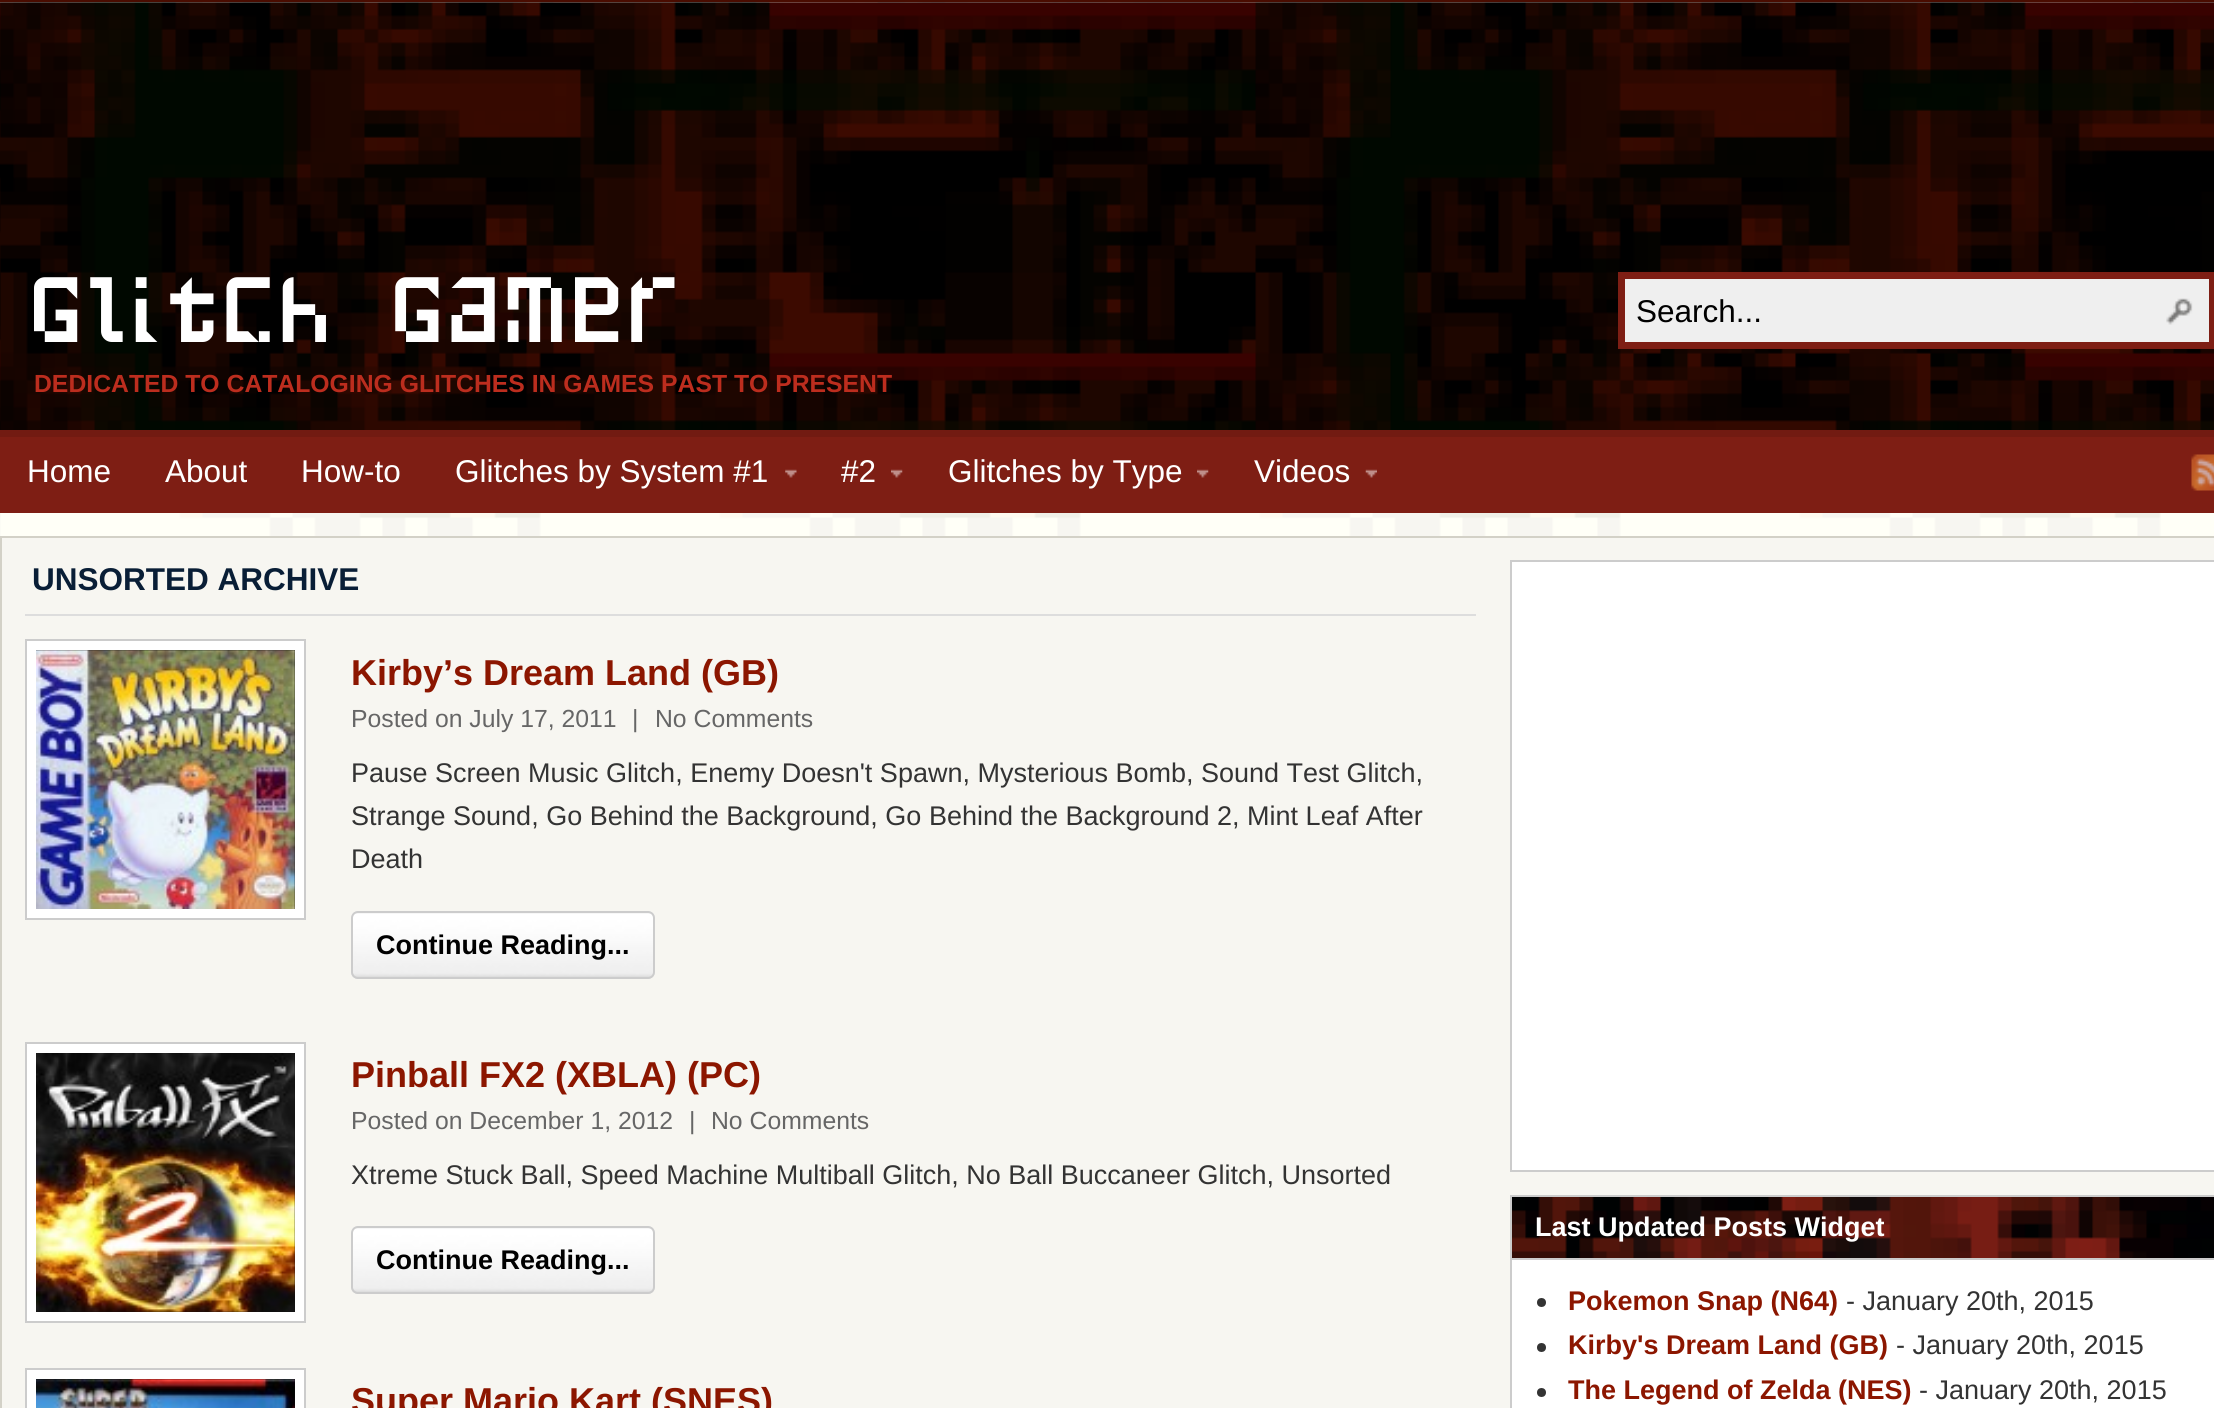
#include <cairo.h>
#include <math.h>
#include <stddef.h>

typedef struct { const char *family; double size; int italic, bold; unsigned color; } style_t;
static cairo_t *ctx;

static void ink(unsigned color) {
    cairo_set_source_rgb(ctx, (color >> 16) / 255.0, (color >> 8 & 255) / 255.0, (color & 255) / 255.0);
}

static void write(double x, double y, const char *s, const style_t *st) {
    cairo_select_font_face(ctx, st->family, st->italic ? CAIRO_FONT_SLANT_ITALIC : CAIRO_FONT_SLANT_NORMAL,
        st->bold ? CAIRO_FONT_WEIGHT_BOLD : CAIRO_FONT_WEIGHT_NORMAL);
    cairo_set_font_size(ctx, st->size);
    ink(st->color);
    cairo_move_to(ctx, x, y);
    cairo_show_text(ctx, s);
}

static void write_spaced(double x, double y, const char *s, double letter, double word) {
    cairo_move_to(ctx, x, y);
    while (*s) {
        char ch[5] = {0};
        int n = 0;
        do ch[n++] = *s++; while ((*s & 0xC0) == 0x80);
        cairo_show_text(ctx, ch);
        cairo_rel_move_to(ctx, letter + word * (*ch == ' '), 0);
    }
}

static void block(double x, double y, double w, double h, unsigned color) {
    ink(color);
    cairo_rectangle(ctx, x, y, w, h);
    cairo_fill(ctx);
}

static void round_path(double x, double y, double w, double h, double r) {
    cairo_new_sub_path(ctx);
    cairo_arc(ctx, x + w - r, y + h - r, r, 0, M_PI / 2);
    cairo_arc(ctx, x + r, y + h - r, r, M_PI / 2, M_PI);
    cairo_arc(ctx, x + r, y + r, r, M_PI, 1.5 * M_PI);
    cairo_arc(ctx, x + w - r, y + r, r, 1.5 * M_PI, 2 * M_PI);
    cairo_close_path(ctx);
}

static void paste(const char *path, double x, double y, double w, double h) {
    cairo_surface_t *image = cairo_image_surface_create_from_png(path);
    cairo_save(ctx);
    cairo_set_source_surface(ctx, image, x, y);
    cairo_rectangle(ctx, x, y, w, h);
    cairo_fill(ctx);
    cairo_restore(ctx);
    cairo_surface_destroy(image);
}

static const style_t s1 = {"Liberation Sans", 24.75, 0, 1, 0xbc2d1e};
static const style_t s2 = {"Liberation Sans", 31.5, 0, 0, 0x000000};
static const style_t s3 = {"Liberation Sans", 31.5, 0, 0, 0xffffff};
static const style_t s4 = {"Liberation Sans", 31.5, 0, 1, 0x091e36};
static const style_t s5 = {"Liberation Sans", 36, 0, 1, 0x8c1600};
static const style_t s6 = {"Liberation Sans", 24.75, 0, 0, 0x666666};
static const style_t s7 = {"Liberation Sans", 27, 0, 0, 0x333333};
static const style_t s8 = {"Liberation Sans", 27, 0, 1, 0x000000};
static const style_t s9 = {"Liberation Sans", 27, 0, 1, 0xffffff};
static const style_t s10 = {"Liberation Sans", 27, 0, 1, 0x8c1600};

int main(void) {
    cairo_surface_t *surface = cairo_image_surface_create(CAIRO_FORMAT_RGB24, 2214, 1408);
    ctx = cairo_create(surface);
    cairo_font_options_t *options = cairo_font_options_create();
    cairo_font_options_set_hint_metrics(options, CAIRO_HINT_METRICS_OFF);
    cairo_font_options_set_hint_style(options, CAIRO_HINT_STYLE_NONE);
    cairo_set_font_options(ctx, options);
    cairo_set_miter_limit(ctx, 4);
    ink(0xffffff);
    cairo_paint(ctx);
    paste("pic1.png", 0, 2, 2214, 534);
    block(0, 0, 2214, 2, 0x4a0c00);
    paste("pic2.png", 0, 2, 2214, 428);
    block(0, 430, 2214, 7, 0x721b12);
    cairo_select_font_face(ctx, "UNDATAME", CAIRO_FONT_SLANT_NORMAL, CAIRO_FONT_WEIGHT_NORMAL);
    cairo_set_font_size(ctx, 108);
    ink(0xffffff);
    write_spaced(34, 342, "Glitch Gamer", 2.25, 0);
    write(34, 392, "DEDICATED TO CATALOGING GLITCHES IN GAMES PAST TO PRESENT", &s1);
    ink(0xefefef);
    cairo_rectangle(ctx, 1621.5, 275.5, 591, 70);
    cairo_fill_preserve(ctx);
    ink(0x7e1e14);
    cairo_set_line_width(ctx, 7);
    cairo_stroke(ctx);
    write(1636, 322, "Search...", &s2);
    paste("pic3.png", 2166, 298, 27, 27);
    block(0, 437, 2214, 76, 0x7e1e14);
    write(27, 482, "Home", &s3);
    write(165, 482, "About", &s3);
    write(301, 482, "How-to", &s3);
    write(455, 482, "Glitches by System #1", &s3);
    paste("pic4.png", 785, 469, 12, 9);
    write(841, 482, "#2", &s3);
    paste("pic5.png", 891, 469, 12, 9);
    write(948, 482, "Glitches by Type", &s3);
    paste("pic6.png", 1197, 469, 12, 9);
    write(1254, 482, "Videos", &s3);
    paste("pic7.png", 1365, 469, 12, 9);
    paste("pic8.png", 2191, 454, 23, 37);
    ink(0xf7f6f1);
    cairo_rectangle(ctx, 1, 537, 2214, 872);
    cairo_fill_preserve(ctx);
    ink(0xd3d1c7);
    cairo_set_line_width(ctx, 2);
    cairo_stroke(ctx);
    block(25, 614, 1451, 2, 0xdddddd);
    write(32, 590, "UNSORTED ARCHIVE", &s4);
    ink(0xffffff);
    cairo_rectangle(ctx, 26, 640, 279, 279);
    cairo_fill_preserve(ctx);
    ink(0xcccccc);
    cairo_stroke(ctx);
    block(36, 650, 259, 259, 0x111111);
    paste("pic9.png", 36, 650, 259, 259);
    write(351, 685, "Kirby’s Dream Land (GB)", &s5);
    write(351, 727, "Posted on July 17, 2011", &s6);
    write(632, 727, "|", &s6);
    write(655, 727, "No Comments", &s6);
    write(351, 782, "Pause Screen Music Glitch, Enemy Doesn't Spawn, Mysterious Bomb, Sound Test Glitch,", &s7);
    write(351, 825, "Strange Sound, Go Behind the Background, Go Behind the Background 2, Mint Leaf After", &s7);
    write(351, 868, "Death", &s7);
    ink(0xefefef);
    round_path(351, 911, 304, 68, 7);
    cairo_fill(ctx);
    paste("pic10.png", 351, 913, 304, 66);
    round_path(352, 912, 302, 66, 6);
    ink(0xcccccc);
    cairo_stroke(ctx);
    write(376, 954, "Continue Reading...", &s8);
    ink(0xffffff);
    cairo_rectangle(ctx, 26, 1043, 279, 279);
    cairo_fill_preserve(ctx);
    ink(0xcccccc);
    cairo_stroke(ctx);
    block(36, 1053, 259, 259, 0x111111);
    paste("pic11.png", 36, 1053, 259, 259);
    write(351, 1087, "Pinball FX2 (XBLA) (PC)", &s5);
    write(351, 1129, "Posted on December 1, 2012", &s6);
    write(689, 1129, "|", &s6);
    write(711, 1129, "No Comments", &s6);
    write(351, 1184, "Xtreme Stuck Ball, Speed Machine Multiball Glitch, No Ball Buccaneer Glitch, Unsorted", &s7);
    ink(0xefefef);
    round_path(351, 1226, 304, 68, 7);
    cairo_fill(ctx);
    paste("pic12.png", 351, 1228, 304, 66);
    round_path(352, 1227, 302, 66, 6);
    ink(0xcccccc);
    cairo_stroke(ctx);
    write(376, 1269, "Continue Reading...", &s8);
    ink(0xffffff);
    cairo_rectangle(ctx, 26, 1369, 279, 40);
    cairo_fill_preserve(ctx);
    ink(0xcccccc);
    cairo_stroke(ctx);
    block(36, 1379, 259, 29, 0x111111);
    paste("pic13.png", 36, 1379, 259, 29);
    write(351, 1413, "Super Mario Kart (SNES)", &s5);
    ink(0xffffff);
    cairo_rectangle(ctx, 1511, 561, 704, 610);
    cairo_fill_preserve(ctx);
    ink(0xcccccc);
    cairo_stroke(ctx);
    block(1512, 1260, 702, 148, 0xffffff);
    cairo_rectangle(ctx, 1511, 1196, 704, 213);
    ink(0xcccccc);
    cairo_stroke(ctx);
    paste("pic14.png", 1512, 1197, 702, 61);
    block(1512, 1258, 702, 2, 0xcccccc);
    write(1535, 1236, "Last Updated Posts Widget", &s9);
    ink(0x333333);
    cairo_new_path(ctx);
    cairo_arc(ctx, 1541.5, 1302.5, 4.5, 0, 2 * M_PI);
    cairo_fill(ctx);
    write(1568, 1310, "Pokemon Snap (N64)", &s10);
    write(1846, 1310, "- January 20th, 2015", &s7);
    cairo_new_path(ctx);
    cairo_arc(ctx, 1541.5, 1347.5, 4.5, 0, 2 * M_PI);
    cairo_fill(ctx);
    write(1568, 1354, "Kirby's Dream Land (GB)", &s10);
    write(1896, 1354, "- January 20th, 2015", &s7);
    cairo_new_path(ctx);
    cairo_arc(ctx, 1541.5, 1392.5, 4.5, 0, 2 * M_PI);
    cairo_fill(ctx);
    write(1568, 1399, "The Legend of Zelda (NES)", &s10);
    write(1919, 1399, "- January 20th, 2015", &s7);
    cairo_surface_write_to_png(surface, "screenshot.png");
    cairo_font_options_destroy(options);
    cairo_destroy(ctx);
    cairo_surface_destroy(surface);
    return 0;
}
